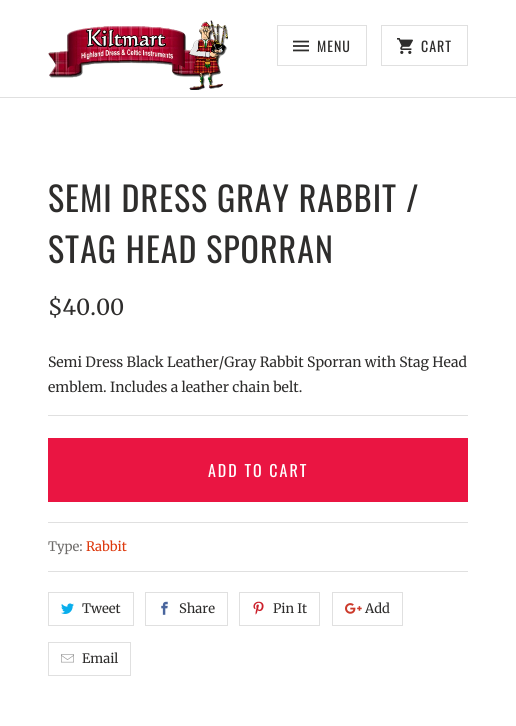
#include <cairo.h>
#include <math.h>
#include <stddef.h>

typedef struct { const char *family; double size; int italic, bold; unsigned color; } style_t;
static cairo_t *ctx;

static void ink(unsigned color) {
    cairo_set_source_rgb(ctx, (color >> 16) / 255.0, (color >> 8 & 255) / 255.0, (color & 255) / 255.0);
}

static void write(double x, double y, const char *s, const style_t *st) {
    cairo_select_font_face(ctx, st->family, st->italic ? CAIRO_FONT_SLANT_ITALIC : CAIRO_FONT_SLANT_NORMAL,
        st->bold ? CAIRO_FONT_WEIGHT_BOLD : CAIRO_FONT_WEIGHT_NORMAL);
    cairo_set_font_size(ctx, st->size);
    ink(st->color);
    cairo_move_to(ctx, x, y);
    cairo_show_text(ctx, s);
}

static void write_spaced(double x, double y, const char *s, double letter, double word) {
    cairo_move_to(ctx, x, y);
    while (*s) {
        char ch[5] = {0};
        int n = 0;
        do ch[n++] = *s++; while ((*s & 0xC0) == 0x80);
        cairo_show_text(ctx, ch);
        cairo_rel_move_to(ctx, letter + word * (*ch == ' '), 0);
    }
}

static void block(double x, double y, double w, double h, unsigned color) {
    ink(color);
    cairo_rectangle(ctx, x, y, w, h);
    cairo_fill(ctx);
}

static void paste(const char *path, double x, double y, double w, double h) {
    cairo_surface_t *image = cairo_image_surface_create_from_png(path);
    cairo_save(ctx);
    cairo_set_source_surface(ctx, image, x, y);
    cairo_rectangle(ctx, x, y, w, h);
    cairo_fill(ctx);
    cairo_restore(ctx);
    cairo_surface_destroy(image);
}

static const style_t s1 = {"Merriweather", 22, 0, 0, 0x2e2d2c};
static const style_t s2 = {"Merriweather", 14, 0, 0, 0x2e2d2c};
static const style_t s3 = {"Merriweather", 13, 0, 0, 0x6e6c6a};
static const style_t s4 = {"Merriweather", 13, 0, 0, 0xdd390d};
static const style_t s5 = {"Merriweather", 13, 0, 0, 0x2e2d2c};

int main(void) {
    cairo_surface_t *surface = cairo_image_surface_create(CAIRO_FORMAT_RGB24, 516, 726);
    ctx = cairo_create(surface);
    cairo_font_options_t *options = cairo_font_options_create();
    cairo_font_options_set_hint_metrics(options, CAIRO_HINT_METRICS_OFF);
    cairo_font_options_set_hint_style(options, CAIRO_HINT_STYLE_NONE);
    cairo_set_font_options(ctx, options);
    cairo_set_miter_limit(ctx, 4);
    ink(0xffffff);
    cairo_paint(ctx);
    block(0, 97, 516, 1, 0xe0e0e0);
    paste("pic1.png", 48, 20, 180, 70);
    cairo_rectangle(ctx, 277.5, 25.5, 89, 40);
    cairo_set_line_width(ctx, 1);
    cairo_stroke(ctx);
    paste("pic2.png", 293, 40, 16, 12);
    cairo_select_font_face(ctx, "Oswald", CAIRO_FONT_SLANT_NORMAL, CAIRO_FONT_WEIGHT_NORMAL);
    cairo_set_font_size(ctx, 14);
    ink(0x2e2d2c);
    write_spaced(317, 52, "MENU", 1, 0);
    cairo_rectangle(ctx, 381.5, 25.5, 86, 40);
    ink(0xe0e0e0);
    cairo_stroke(ctx);
    paste("pic3.png", 397, 38, 16, 16);
    ink(0x2e2d2c);
    write_spaced(421, 52, "CART", 1, 0);
    cairo_set_font_size(ctx, 34);
    write_spaced(48, 212, "SEMI DRESS GRAY RABBIT /", 1, 0);
    write_spaced(48, 263, "STAG HEAD SPORRAN", 1, 0);
    write(48, 315, "$40.00", &s1);
    write(48, 367, "Semi Dress Black Leather/Gray Rabbit Sporran with Stag Head", &s2);
    write(48, 392, "emblem. Includes a leather chain belt.", &s2);
    block(48, 415, 420, 1, 0xe0e0e0);
    block(48, 438, 420, 64, 0xea1542);
    cairo_select_font_face(ctx, "Oswald", CAIRO_FONT_SLANT_NORMAL, CAIRO_FONT_WEIGHT_NORMAL);
    cairo_set_font_size(ctx, 16);
    ink(0xffffff);
    write_spaced(208, 477, "ADD TO CART", 2, 0);
    block(48, 522, 420, 1, 0xe0e0e0);
    write(48, 551, "Type:", &s3);
    write(86, 551, "Rabbit", &s4);
    block(48, 571, 420, 1, 0xe0e0e0);
    cairo_rectangle(ctx, 48.5, 592.5, 85, 33);
    cairo_stroke(ctx);
    paste("pic4.png", 61, 603, 13, 11);
    write(82, 613, "Tweet", &s5);
    cairo_rectangle(ctx, 145.5, 592.5, 82, 33);
    ink(0xe0e0e0);
    cairo_stroke(ctx);
    paste("pic5.png", 161, 601, 7, 14);
    write(179, 613, "Share", &s5);
    cairo_rectangle(ctx, 239.5, 592.5, 80, 33);
    ink(0xe0e0e0);
    cairo_stroke(ctx);
    paste("pic6.png", 253, 601, 11, 14);
    write(273, 613, "Pin It", &s5);
    cairo_rectangle(ctx, 332.5, 592.5, 70, 33);
    ink(0xe0e0e0);
    cairo_stroke(ctx);
    paste("pic7.png", 345, 603, 17, 11);
    write(365, 613, "Add", &s5);
    cairo_rectangle(ctx, 48.5, 642.5, 82, 33);
    ink(0xe0e0e0);
    cairo_stroke(ctx);
    paste("pic8.png", 61, 654, 13, 9);
    write(82, 663, "Email", &s5);
    cairo_surface_write_to_png(surface, "screenshot.png");
    cairo_font_options_destroy(options);
    cairo_destroy(ctx);
    cairo_surface_destroy(surface);
    return 0;
}
